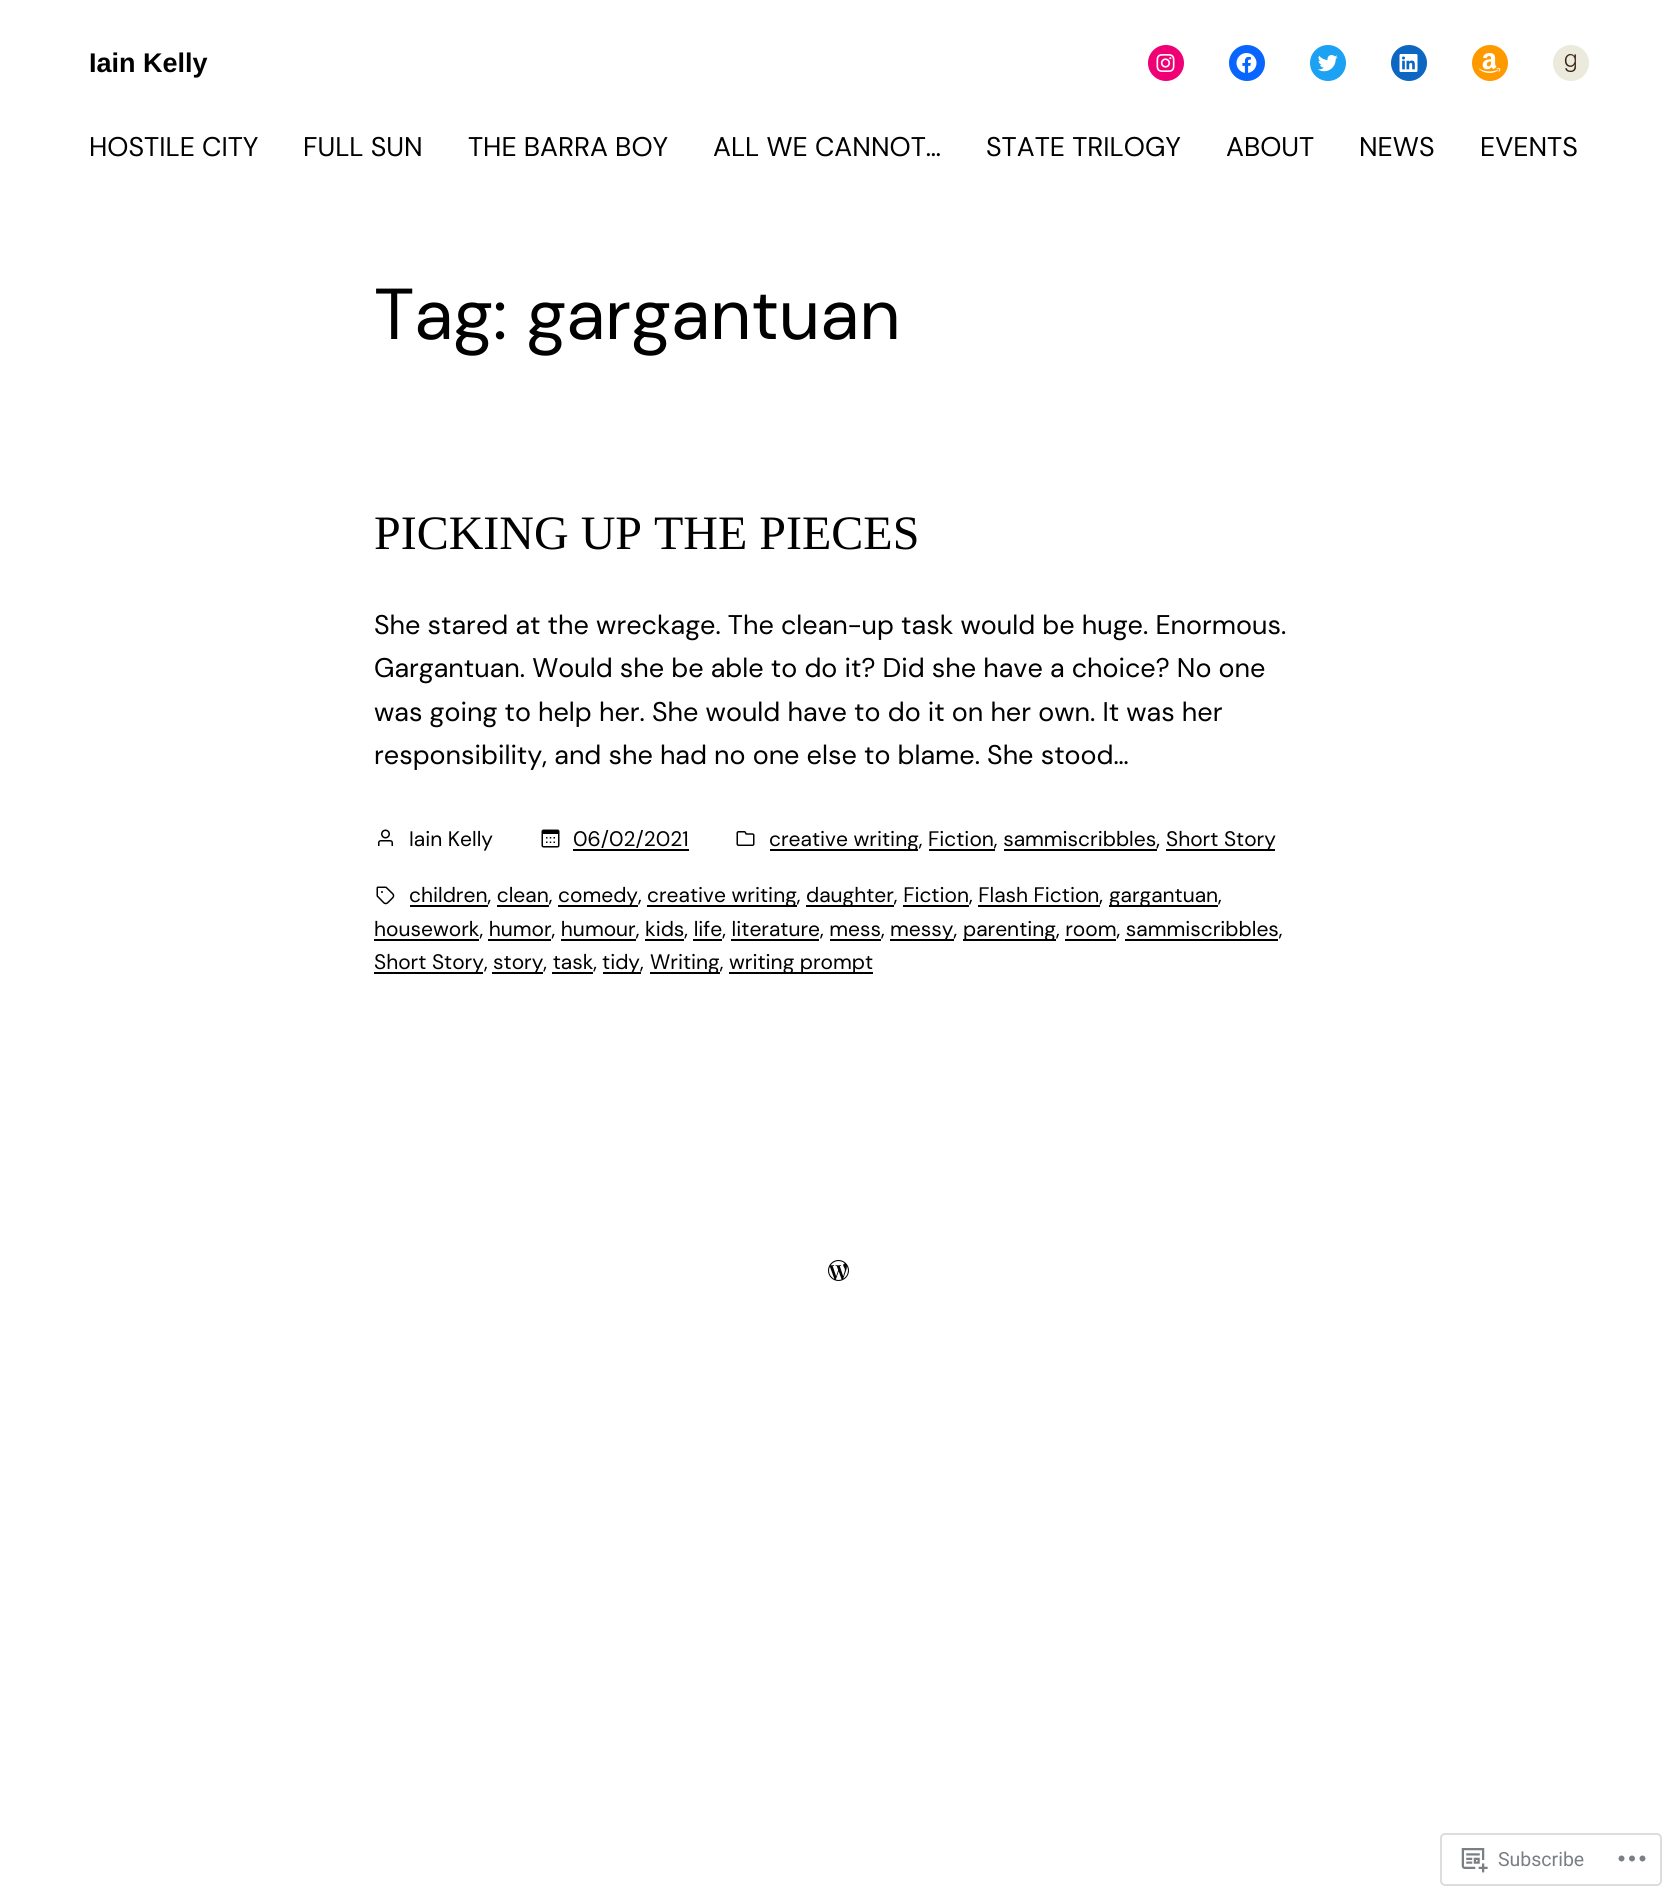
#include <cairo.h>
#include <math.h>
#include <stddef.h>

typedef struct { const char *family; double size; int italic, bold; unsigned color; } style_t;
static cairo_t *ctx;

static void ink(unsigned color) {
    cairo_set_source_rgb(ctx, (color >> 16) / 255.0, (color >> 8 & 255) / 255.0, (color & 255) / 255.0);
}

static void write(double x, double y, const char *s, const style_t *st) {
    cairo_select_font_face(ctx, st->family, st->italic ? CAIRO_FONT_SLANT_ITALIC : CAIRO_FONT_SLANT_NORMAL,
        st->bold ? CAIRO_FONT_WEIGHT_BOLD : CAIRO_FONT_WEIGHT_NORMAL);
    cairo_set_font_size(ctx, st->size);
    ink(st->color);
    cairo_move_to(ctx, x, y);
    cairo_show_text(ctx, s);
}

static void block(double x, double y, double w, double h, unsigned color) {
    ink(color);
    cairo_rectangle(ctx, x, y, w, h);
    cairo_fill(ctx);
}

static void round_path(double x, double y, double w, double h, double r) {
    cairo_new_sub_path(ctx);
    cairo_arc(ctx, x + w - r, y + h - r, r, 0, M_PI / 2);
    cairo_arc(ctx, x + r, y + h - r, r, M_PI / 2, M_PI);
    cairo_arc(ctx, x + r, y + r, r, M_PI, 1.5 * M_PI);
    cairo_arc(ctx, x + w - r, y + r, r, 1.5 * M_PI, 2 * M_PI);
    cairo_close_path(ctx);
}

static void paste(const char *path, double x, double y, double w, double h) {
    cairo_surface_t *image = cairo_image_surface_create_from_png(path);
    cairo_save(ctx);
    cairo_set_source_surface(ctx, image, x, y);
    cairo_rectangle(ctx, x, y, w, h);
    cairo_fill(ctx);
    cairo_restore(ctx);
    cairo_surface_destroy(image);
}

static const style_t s1 = {"Liberation Sans", 27, 0, 1, 0x000000};
static const style_t s2 = {"DM Sans", 27, 0, 0, 0x000000};
static const style_t s3 = {"DM Sans", 72, 0, 0, 0x000000};
static const style_t s4 = {"Liberation Serif", 48, 0, 0, 0x000000};
static const style_t s5 = {"DM Sans", 21, 0, 0, 0x000000};
static const style_t s6 = {"Roboto", 19.5, 0, 0, 0x7b7f85};

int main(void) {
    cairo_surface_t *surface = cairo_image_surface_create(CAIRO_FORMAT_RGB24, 1677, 1900);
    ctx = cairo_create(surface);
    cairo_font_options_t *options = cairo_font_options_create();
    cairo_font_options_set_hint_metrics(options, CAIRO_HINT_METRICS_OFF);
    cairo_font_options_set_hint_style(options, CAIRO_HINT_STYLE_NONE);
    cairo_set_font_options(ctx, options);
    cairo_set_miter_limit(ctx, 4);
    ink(0xffffff);
    cairo_paint(ctx);
    write(89, 72, "Iain Kelly", &s1);
    ink(0xf00075);
    cairo_new_path(ctx);
    cairo_arc(ctx, 1166, 63, 18, 0, 2 * M_PI);
    cairo_fill(ctx);
    paste("pic1.png", 1156, 54, 19, 18);
    ink(0x0866ff);
    cairo_arc(ctx, 1247, 63, 18, 0, 2 * M_PI);
    cairo_fill(ctx);
    paste("pic2.png", 1236, 53, 21, 20);
    ink(0x1da1f2);
    cairo_arc(ctx, 1328, 63, 18, 0, 2 * M_PI);
    cairo_fill(ctx);
    paste("pic3.png", 1317, 55, 21, 17);
    ink(0x0d66c2);
    cairo_arc(ctx, 1409, 63, 18, 0, 2 * M_PI);
    cairo_fill(ctx);
    paste("pic4.png", 1399, 54, 19, 18);
    ink(0xff9900);
    cairo_arc(ctx, 1490, 63, 18, 0, 2 * M_PI);
    cairo_fill(ctx);
    paste("pic5.png", 1478, 53, 23, 20);
    ink(0xeceadd);
    cairo_arc(ctx, 1571, 63, 18, 0, 2 * M_PI);
    cairo_fill(ctx);
    paste("pic6.png", 1564, 54, 12, 18);
    write(89, 156, "HOSTILE CITY", &s2);
    write(303, 156, "FULL SUN", &s2);
    write(468, 156, "THE BARRA BOY", &s2);
    write(713, 156, "ALL WE CANNOT…", &s2);
    write(986, 156, "STATE TRILOGY", &s2);
    write(1226, 156, "ABOUT", &s2);
    write(1359, 156, "NEWS", &s2);
    write(1480, 156, "EVENTS", &s2);
    write(374, 339, "Tag: gargantuan", &s3);
    write(374, 549, "PICKING UP THE PIECES", &s4);
    write(374, 634, "She stared at the wreckage. The clean-up task would be huge. Enormous.", &s2);
    write(374, 677, "Gargantuan. Would she be able to do it? Did she have a choice? No one", &s2);
    write(374, 721, "was going to help her. She would have to do it on her own. It was her", &s2);
    write(374, 764, "responsibility, and she had no one else to blame. She stood…", &s2);
    paste("pic7.png", 378, 829, 15, 17);
    write(409, 846, "Iain Kelly", &s5);
    paste("pic8.png", 541, 829, 19, 19);
    write(573, 846, "06/02/2021", &s5);
    block(573, 849, 116, 2, 0x000000);
    paste("pic9.png", 736, 831, 19, 15);
    block(770, 849, 148, 2, 0x000000);
    write(769, 846, "creative writing, Fiction, sammiscribbles,", &s5);
    block(1166, 849, 109, 2, 0x000000);
    write(1166, 846, "Short Story", &s5);
    block(929, 849, 66, 2, 0x000000);
    block(1004, 849, 153, 2, 0x000000);
    paste("pic10.png", 376, 886, 19, 19);
    write(409, 902, "children, clean,", &s5);
    block(410, 905, 78, 2, 0x000000);
    block(558, 905, 80, 2, 0x000000);
    write(558, 902, "comedy,", &s5);
    block(647, 905, 150, 2, 0x000000);
    write(647, 902, "creative writing,", &s5);
    block(806, 905, 88, 2, 0x000000);
    write(806, 902, "daughter, Fiction, Flash Fiction,", &s5);
    block(1109, 905, 109, 2, 0x000000);
    write(1109, 902, "gargantuan,", &s5);
    block(497, 905, 52, 2, 0x000000);
    block(903, 905, 66, 2, 0x000000);
    block(978, 905, 122, 2, 0x000000);
    write(374, 936, "housework, humor, humour, kids, life, literature, mess,", &s5);
    block(374, 939, 105, 2, 0x000000);
    block(890, 939, 64, 2, 0x000000);
    write(890, 936, "messy,", &s5);
    block(963, 939, 93, 2, 0x000000);
    write(963, 936, "parenting, room, sammiscribbles,", &s5);
    block(488, 939, 63, 2, 0x000000);
    block(561, 939, 75, 2, 0x000000);
    block(645, 939, 39, 2, 0x000000);
    block(693, 939, 29, 2, 0x000000);
    block(731, 939, 88, 2, 0x000000);
    block(830, 939, 51, 2, 0x000000);
    block(1065, 939, 51, 2, 0x000000);
    block(1125, 939, 153, 2, 0x000000);
    block(374, 972, 109, 2, 0x000000);
    write(374, 969, "Short Story,", &s5);
    block(492, 972, 51, 2, 0x000000);
    write(493, 969, "story, task,", &s5);
    block(603, 972, 38, 2, 0x000000);
    write(602, 969, "tidy,", &s5);
    block(650, 972, 70, 2, 0x000000);
    write(650, 969, "Writing,", &s5);
    block(729, 972, 144, 2, 0x000000);
    write(729, 969, "writing prompt", &s5);
    block(552, 972, 41, 2, 0x000000);
    paste("pic11.png", 828, 1260, 21, 21);
    round_path(1441, 1834, 220, 51, 4);
    ink(0xdddddf);
    cairo_stroke(ctx);
    paste("pic12.png", 1461, 1848, 27, 25);
    write(1498, 1866, "Subscribe", &s6);
    paste("pic13.png", 1618, 1855, 28, 7);
    cairo_surface_write_to_png(surface, "screenshot.png");
    cairo_font_options_destroy(options);
    cairo_destroy(ctx);
    cairo_surface_destroy(surface);
    return 0;
}
